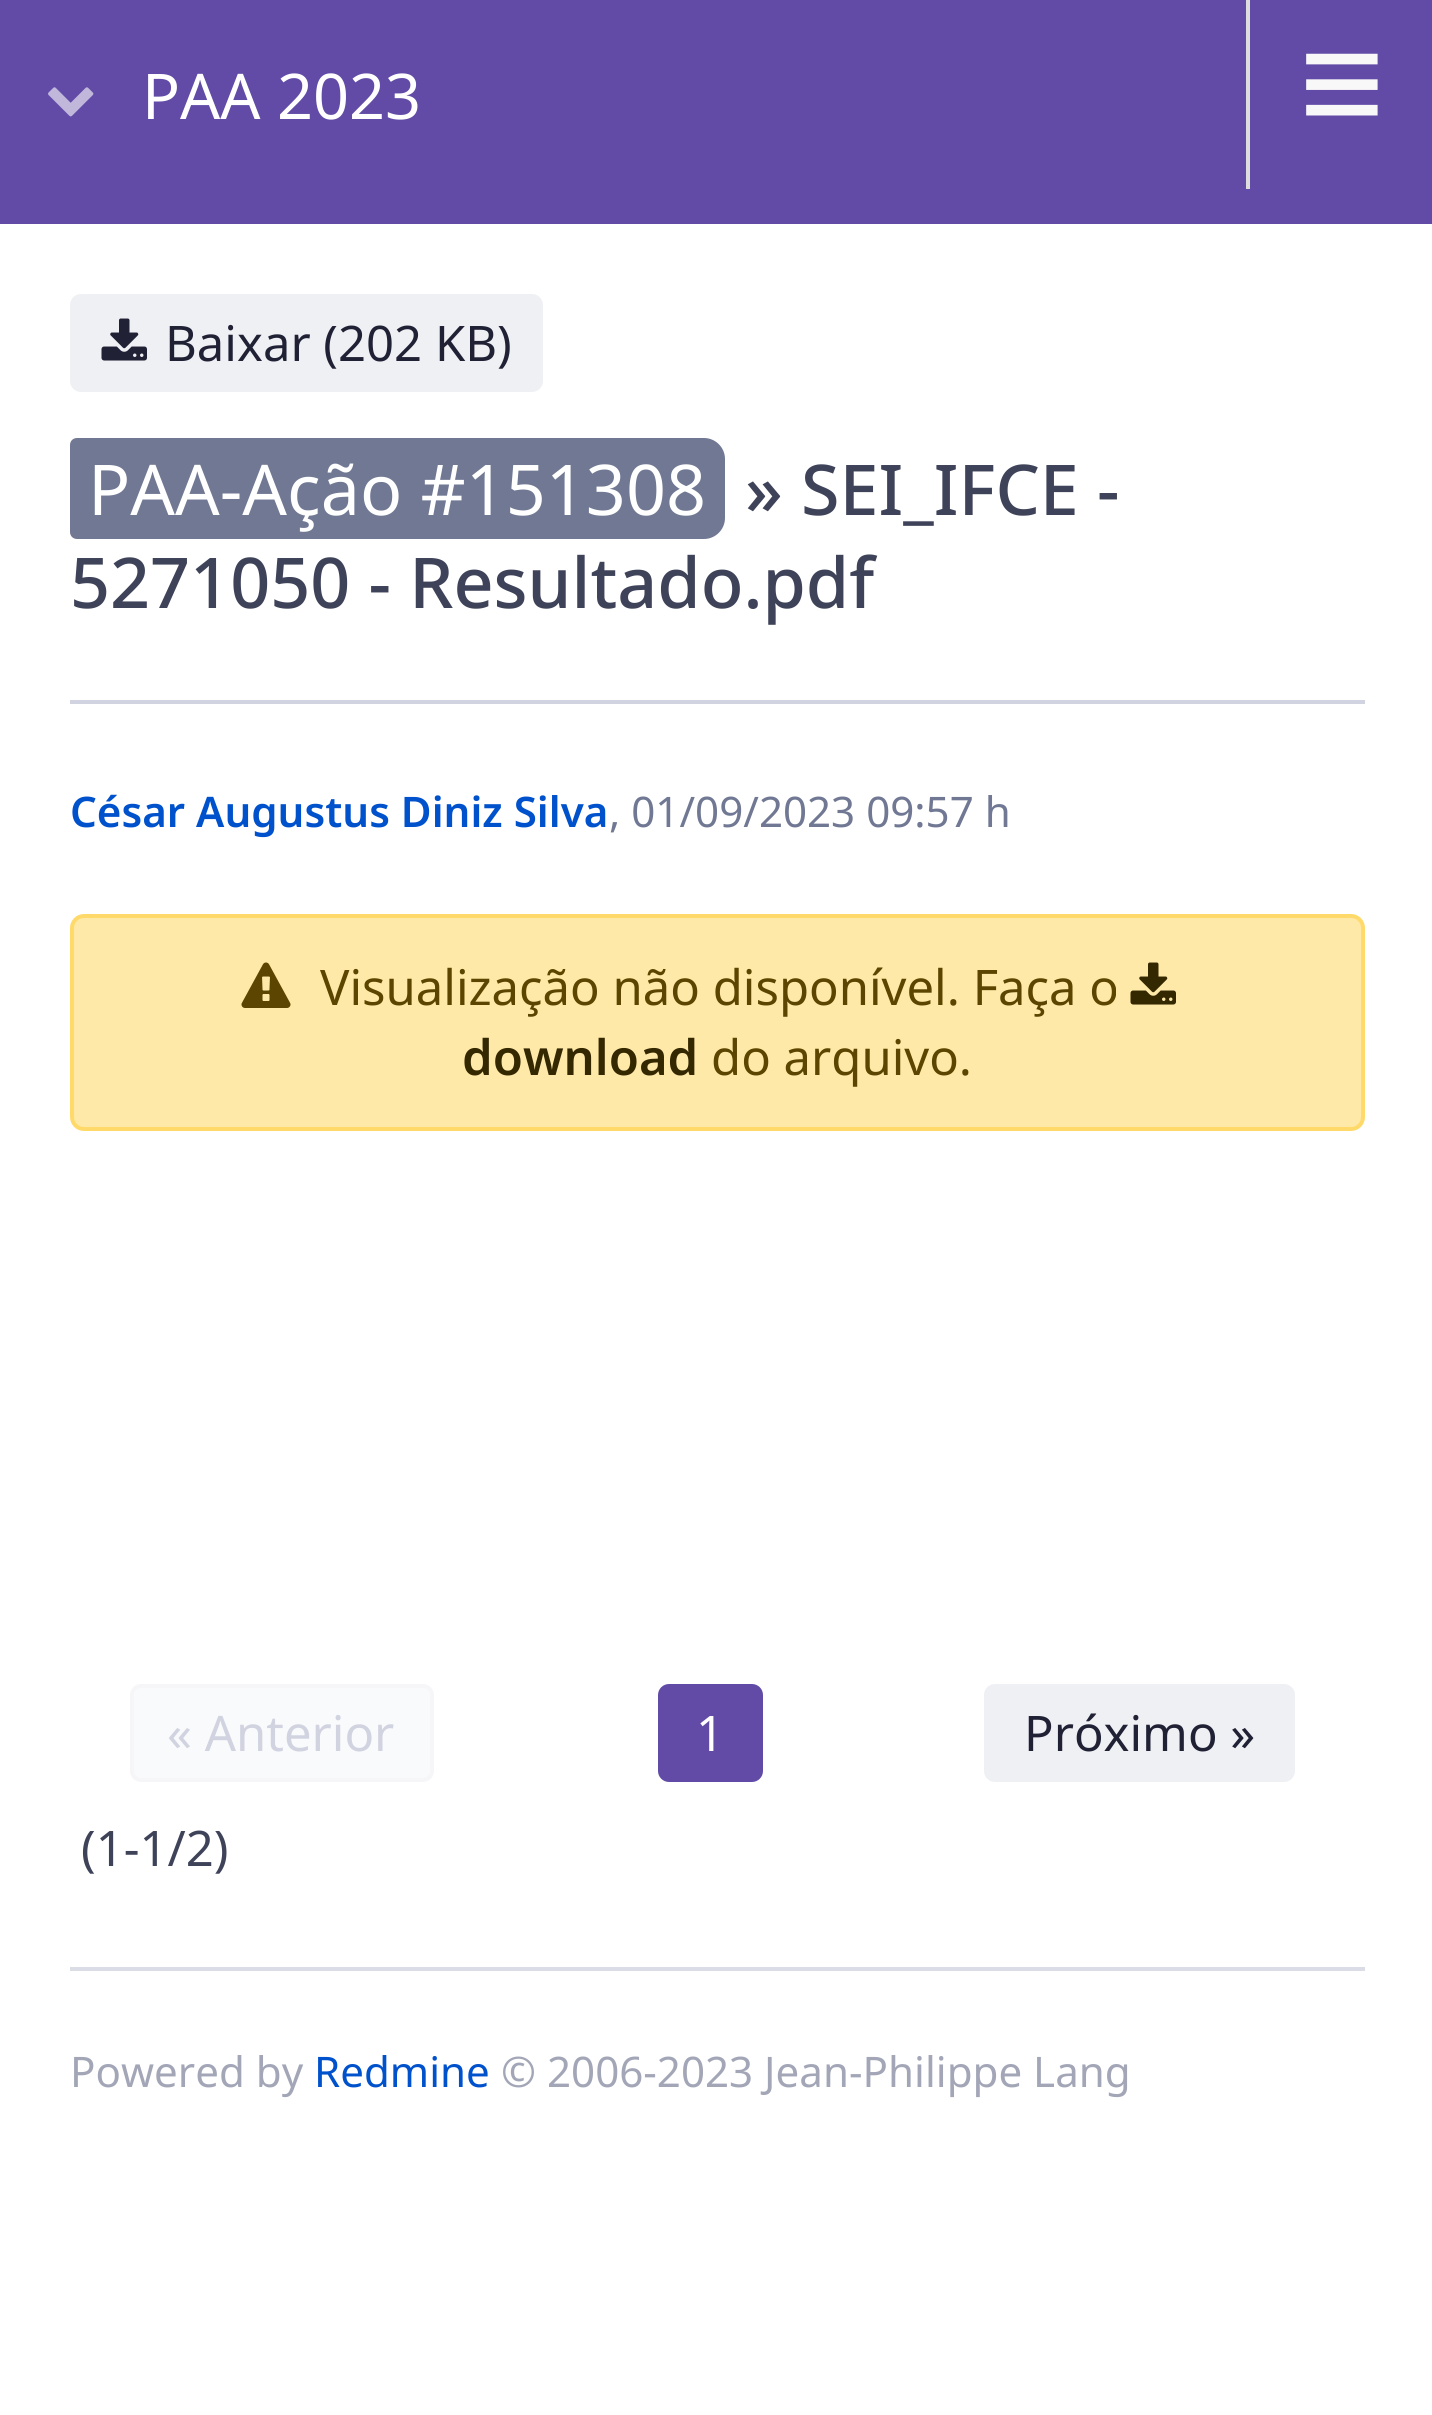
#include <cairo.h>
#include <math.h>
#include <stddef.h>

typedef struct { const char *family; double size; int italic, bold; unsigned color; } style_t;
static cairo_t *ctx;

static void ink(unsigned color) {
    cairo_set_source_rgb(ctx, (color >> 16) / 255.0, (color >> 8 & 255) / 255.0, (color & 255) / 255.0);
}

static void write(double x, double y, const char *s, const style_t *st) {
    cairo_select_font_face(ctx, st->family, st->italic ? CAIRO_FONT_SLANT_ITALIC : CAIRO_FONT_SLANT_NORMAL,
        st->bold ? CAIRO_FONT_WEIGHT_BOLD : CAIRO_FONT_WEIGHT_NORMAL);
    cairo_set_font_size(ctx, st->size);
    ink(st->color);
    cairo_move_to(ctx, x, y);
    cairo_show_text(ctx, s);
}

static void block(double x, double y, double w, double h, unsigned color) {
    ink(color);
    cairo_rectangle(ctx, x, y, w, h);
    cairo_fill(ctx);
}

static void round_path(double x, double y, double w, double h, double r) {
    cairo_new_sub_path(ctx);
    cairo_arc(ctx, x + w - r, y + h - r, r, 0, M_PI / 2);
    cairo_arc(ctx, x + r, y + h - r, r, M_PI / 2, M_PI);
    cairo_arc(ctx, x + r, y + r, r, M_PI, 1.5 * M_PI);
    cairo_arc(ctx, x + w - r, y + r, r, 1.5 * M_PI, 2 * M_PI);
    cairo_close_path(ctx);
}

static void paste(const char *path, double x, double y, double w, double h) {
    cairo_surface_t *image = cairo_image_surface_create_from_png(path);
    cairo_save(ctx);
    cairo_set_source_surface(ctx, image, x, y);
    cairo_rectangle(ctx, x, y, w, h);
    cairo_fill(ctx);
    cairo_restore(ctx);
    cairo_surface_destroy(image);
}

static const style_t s1 = {"Noto Sans", 63, 0, 0, 0xffffff};
static const style_t s2 = {"Liberation Sans", 147, 0, 0, 0xf8f8f8};
static const style_t s3 = {"Noto Sans", 49, 0, 0, 0x212136};
static const style_t s4 = {"Noto Sans", 70, 0, 0, 0xffffff};
static const style_t s5 = {"Noto Sans Medium", 70, 0, 0, 0x3e4359};
static const style_t s6 = {"Noto Sans SemiBold", 42.1, 0, 0, 0x0051cc};
static const style_t s7 = {"Noto Sans", 42.1, 0, 0, 0x707893};
static const style_t s8 = {"Noto Sans", 49, 0, 0, 0x5b4500};
static const style_t s9 = {"Noto Sans SemiBold", 49, 0, 0, 0x342800};
static const style_t s10 = {"Noto Sans", 49, 0, 0, 0xd1d3e0};
static const style_t s11 = {"Noto Sans", 49, 0, 0, 0xffffff};
static const style_t s12 = {"Noto Sans", 49, 0, 0, 0x3e4359};
static const style_t s13 = {"Noto Sans", 42.1, 0, 0, 0xa3a6b7};
static const style_t s14 = {"Noto Sans", 42.1, 0, 0, 0x0051cc};

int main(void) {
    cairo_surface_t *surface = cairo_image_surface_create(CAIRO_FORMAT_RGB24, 1432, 2415);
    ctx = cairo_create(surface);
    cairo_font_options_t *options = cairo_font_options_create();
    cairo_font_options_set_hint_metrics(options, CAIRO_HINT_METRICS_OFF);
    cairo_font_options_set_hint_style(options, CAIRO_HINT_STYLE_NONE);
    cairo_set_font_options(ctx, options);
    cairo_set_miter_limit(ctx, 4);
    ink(0xffffff);
    cairo_paint(ctx);
    block(0, 0, 1432, 224, 0x614ba6);
    paste("pic1.png", 48, 87, 46, 30);
    write(142, 119, "PAA 2023", &s1);
    block(1246, 0, 4, 189, 0xdddddd);
    write(1299, 133, "≡", &s2);
    ink(0xeff0f4);
    round_path(72, 296, 469, 94, 9);
    cairo_fill_preserve(ctx);
    cairo_set_line_width(ctx, 4);
    cairo_stroke(ctx);
    paste("pic2.png", 101, 318, 46, 43);
    write(165, 361, "Baixar (202 KB)", &s3);
    ink(0x707893);
    cairo_new_path(ctx);
    cairo_move_to(ctx, 77, 438);
    cairo_line_to(ctx, 704, 438);
    cairo_curve_to(ctx, 715.5, 438, 725, 447.5, 725, 459);
    cairo_line_to(ctx, 725, 518);
    cairo_curve_to(ctx, 725, 529.5, 715.5, 539, 704, 539);
    cairo_line_to(ctx, 77, 539);
    cairo_curve_to(ctx, 73, 539, 70, 536, 70, 532);
    cairo_line_to(ctx, 70, 445);
    cairo_curve_to(ctx, 70, 441, 73, 438, 77, 438);
    cairo_close_path(ctx);
    cairo_fill(ctx);
    write(88, 515, "PAA-Ação #151308", &s4);
    write(745, 515, "» SEI_IFCE -", &s5);
    write(70, 608, "5271050 - Resultado.pdf", &s5);
    block(70, 700, 1295, 4, 0xd1d3e0);
    write(70, 827, "César Augustus Diniz Silva", &s6);
    write(609, 827, ", 01/09/2023 09:57 h", &s7);
    ink(0xffe9a8);
    round_path(72, 916, 1291, 213, 12);
    cairo_fill_preserve(ctx);
    ink(0xffda6a);
    cairo_stroke(ctx);
    paste("pic3.png", 241, 962, 50, 46);
    write(320, 1005, "Visualização não disponível. Faça o", &s8);
    paste("pic4.png", 1130, 962, 46, 43);
    write(462, 1075, "download", &s9);
    write(711, 1075, "do arquivo.", &s8);
    ink(0xf9fafb);
    round_path(132, 1686, 300, 94, 9);
    cairo_fill_preserve(ctx);
    ink(0xf6f6f9);
    cairo_stroke(ctx);
    write(167, 1751, "« Anterior", &s10);
    ink(0x614ba6);
    round_path(660, 1686, 101, 94, 9);
    cairo_fill_preserve(ctx);
    cairo_stroke(ctx);
    write(696, 1751, "1", &s11);
    ink(0xeff0f4);
    round_path(986, 1686, 307, 94, 9);
    cairo_fill_preserve(ctx);
    cairo_stroke(ctx);
    write(1024, 1751, "Próximo »", &s3);
    write(81, 1866, "(1-1/2)", &s12);
    block(70, 1967, 1295, 4, 0xdadce6);
    write(70, 2087, "Powered by", &s13);
    write(314, 2087, "Redmine", &s14);
    write(501, 2087, "© 2006-2023 Jean-Philippe Lang", &s13);
    cairo_surface_write_to_png(surface, "screenshot.png");
    cairo_font_options_destroy(options);
    cairo_destroy(ctx);
    cairo_surface_destroy(surface);
    return 0;
}
